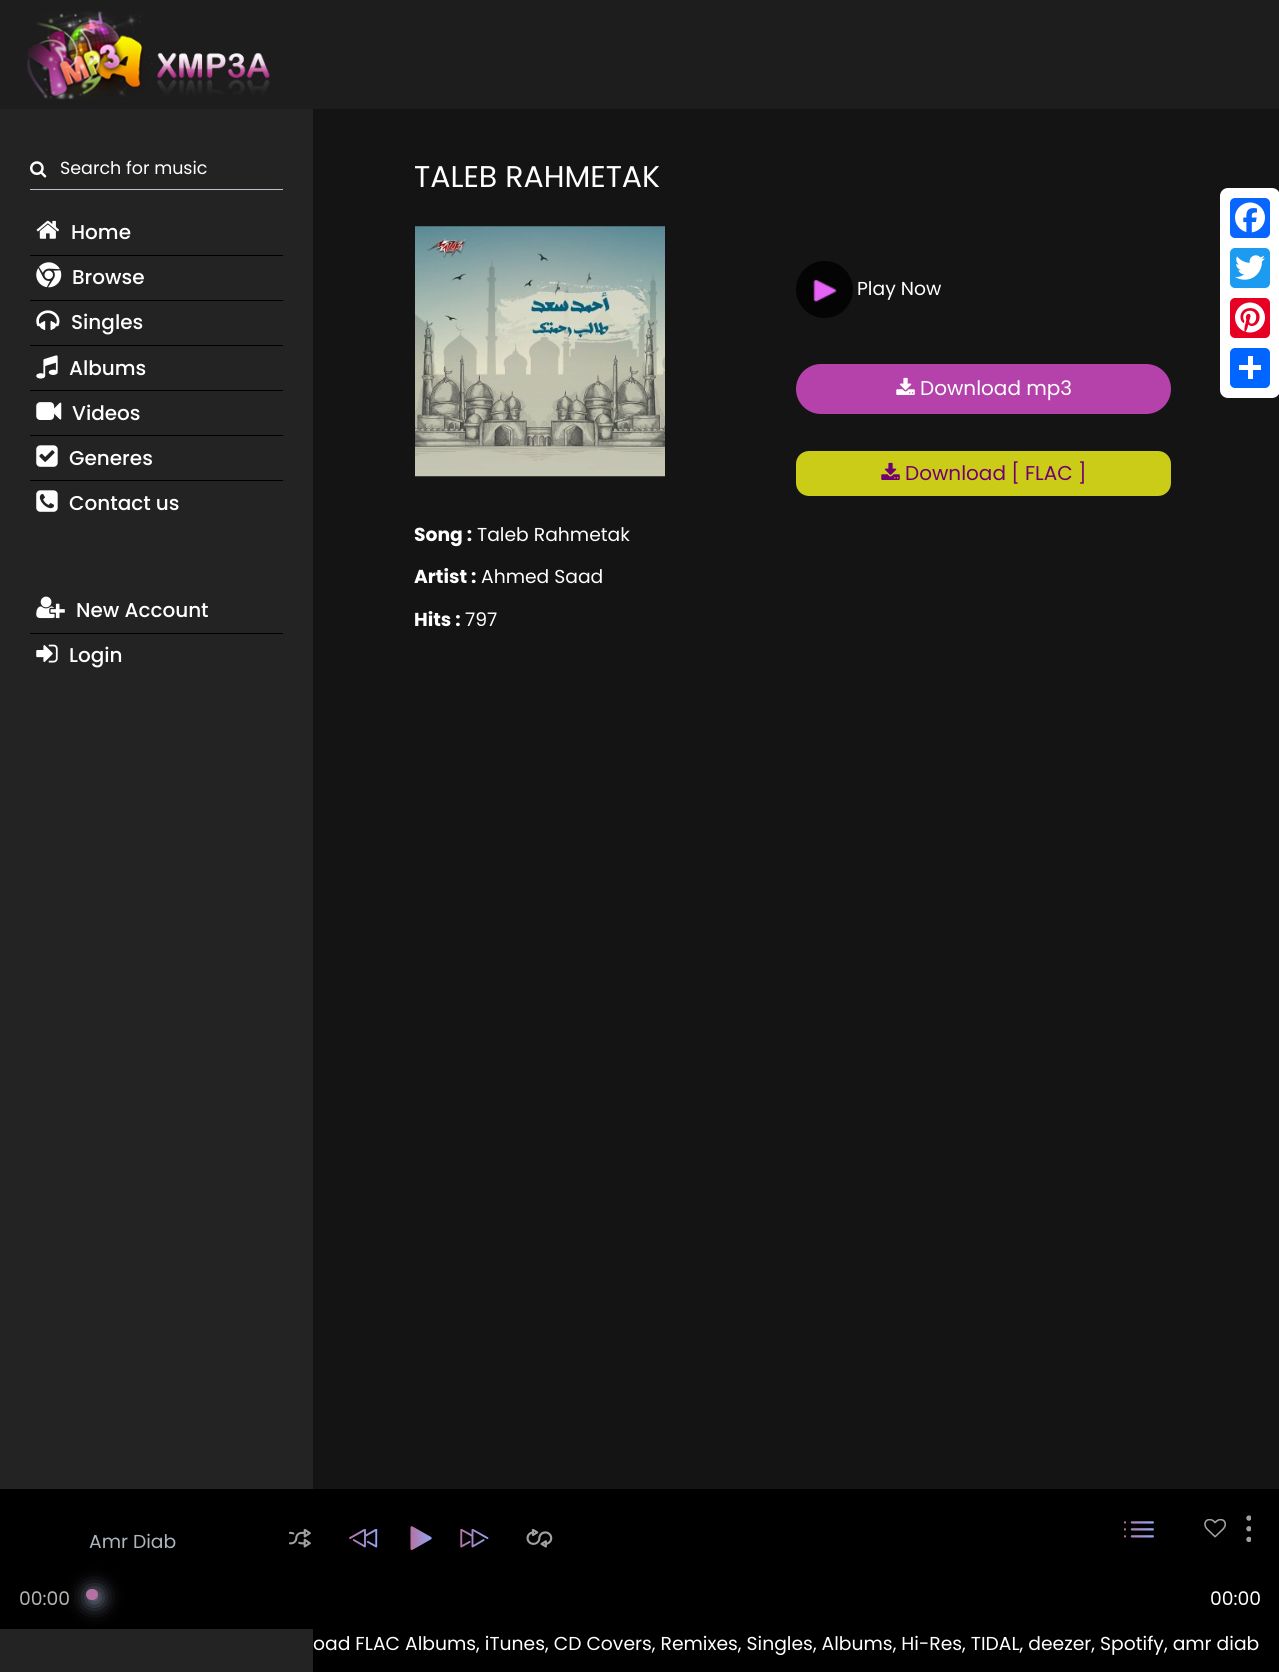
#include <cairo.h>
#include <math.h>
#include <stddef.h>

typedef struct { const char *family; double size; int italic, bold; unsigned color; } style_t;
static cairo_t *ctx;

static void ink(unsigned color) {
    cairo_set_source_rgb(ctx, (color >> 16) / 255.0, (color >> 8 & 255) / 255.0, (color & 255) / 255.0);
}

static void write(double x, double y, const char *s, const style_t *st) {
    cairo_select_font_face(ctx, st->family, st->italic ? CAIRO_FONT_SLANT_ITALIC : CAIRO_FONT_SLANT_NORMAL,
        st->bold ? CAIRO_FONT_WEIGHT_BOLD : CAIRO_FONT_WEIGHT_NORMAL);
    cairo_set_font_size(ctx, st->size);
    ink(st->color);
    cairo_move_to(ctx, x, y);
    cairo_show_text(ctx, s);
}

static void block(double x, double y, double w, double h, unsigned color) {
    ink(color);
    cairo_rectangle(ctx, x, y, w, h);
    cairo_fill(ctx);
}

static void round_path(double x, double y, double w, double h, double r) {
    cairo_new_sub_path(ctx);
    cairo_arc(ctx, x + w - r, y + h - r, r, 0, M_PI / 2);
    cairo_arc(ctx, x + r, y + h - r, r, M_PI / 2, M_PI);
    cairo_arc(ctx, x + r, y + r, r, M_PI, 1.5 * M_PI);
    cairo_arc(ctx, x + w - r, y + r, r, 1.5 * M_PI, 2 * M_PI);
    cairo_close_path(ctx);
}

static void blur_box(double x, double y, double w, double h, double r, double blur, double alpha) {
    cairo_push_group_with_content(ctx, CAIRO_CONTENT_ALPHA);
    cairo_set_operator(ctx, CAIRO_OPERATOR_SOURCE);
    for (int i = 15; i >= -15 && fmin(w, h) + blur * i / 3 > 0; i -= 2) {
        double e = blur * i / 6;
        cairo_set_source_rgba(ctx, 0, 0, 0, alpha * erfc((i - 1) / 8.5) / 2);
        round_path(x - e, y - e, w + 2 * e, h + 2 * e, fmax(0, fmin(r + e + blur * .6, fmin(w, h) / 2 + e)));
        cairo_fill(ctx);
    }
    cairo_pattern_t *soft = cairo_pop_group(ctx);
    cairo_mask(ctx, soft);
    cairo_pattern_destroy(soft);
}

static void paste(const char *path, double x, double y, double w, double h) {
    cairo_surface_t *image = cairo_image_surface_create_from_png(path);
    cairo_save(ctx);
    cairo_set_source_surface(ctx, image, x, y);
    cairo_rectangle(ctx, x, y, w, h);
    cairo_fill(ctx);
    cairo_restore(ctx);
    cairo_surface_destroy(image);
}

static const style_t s1 = {"Poppins", 17.5, 0, 0, 0xffffff};
static const style_t s2 = {"Poppins Medium", 20, 0, 0, 0xffffff};
static const style_t s3 = {"Poppins", 30, 0, 0, 0xffffff};
static const style_t s4 = {"Poppins", 18.75, 0, 1, 0xffffff};
static const style_t s5 = {"Poppins", 18.75, 0, 0, 0xffffff};
static const style_t s6 = {"Poppins", 20, 0, 0, 0xffffff};
static const style_t s7 = {"Poppins", 20, 0, 0, 0x720072};
static const style_t s8 = {"Poppins", 18.75, 0, 0, 0xadb5bd};
static const style_t s9 = {"Poppins", 18.75, 0, 0, 0xb3b3b3};

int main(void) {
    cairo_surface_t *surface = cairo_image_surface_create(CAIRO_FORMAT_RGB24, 1279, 1672);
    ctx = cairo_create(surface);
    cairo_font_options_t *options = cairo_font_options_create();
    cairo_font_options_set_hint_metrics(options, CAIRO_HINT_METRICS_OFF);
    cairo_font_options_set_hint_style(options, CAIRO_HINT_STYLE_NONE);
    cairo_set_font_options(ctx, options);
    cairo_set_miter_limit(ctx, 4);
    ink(0x000000);
    cairo_paint(ctx);
    block(0, 0, 1279, 109, 0x1d1d1d);
    paste("pic1.png", 27, 11, 243, 89);
    block(0, 109, 313, 1563, 0x232323);
    paste("pic2.png", 30, 161, 17, 17);
    write(60, 174, "Search for music", &s1);
    block(30, 189, 253, 1, 0xb9c1ca);
    block(30, 255, 253, 1, 0x000000);
    paste("pic3.png", 36, 220, 23, 19);
    write(71, 239, "Home", &s2);
    block(30, 300, 253, 1, 0x000000);
    paste("pic4.png", 36, 262, 26, 26);
    write(72, 284, "Browse", &s2);
    block(30, 345, 253, 1, 0x000000);
    paste("pic5.png", 36, 310, 24, 20);
    write(71, 329, "Singles", &s2);
    block(30, 390, 253, 1, 0x000000);
    paste("pic6.png", 36, 355, 22, 24);
    write(69, 375, "Albums", &s2);
    block(30, 435, 253, 1, 0x000000);
    paste("pic7.png", 36, 402, 26, 18);
    write(72, 420, "Videos", &s2);
    block(30, 480, 253, 1, 0x000000);
    paste("pic8.png", 36, 445, 22, 22);
    write(69, 465, "Generes", &s2);
    paste("pic9.png", 36, 490, 22, 22);
    write(69, 510, "Contact us", &s2);
    block(30, 633, 253, 1, 0x000000);
    paste("pic10.png", 36, 596, 29, 23);
    write(76, 617, "New Account", &s2);
    paste("pic11.png", 36, 644, 22, 19);
    write(69, 662, "Login", &s2);
    block(313, 109, 966, 1380, 0x141414);
    write(414, 187, "TALEB RAHMETAK", &s3);
    paste("pic12.png", 415, 226, 250, 251);
    write(414, 541, "Song :", &s4);
    write(477, 541, "Taleb Rahmetak", &s5);
    write(414, 583, "Artist :", &s4);
    write(481, 583, "Ahmed Saad", &s5);
    write(414, 626, "Hits :", &s4);
    write(465, 626, "797", &s5);
    ink(0x040404);
    cairo_new_path(ctx);
    cairo_arc(ctx, 824.5, 289.5, 28.5, 0, 2 * M_PI);
    cairo_fill(ctx);
    paste("pic13.png", 813, 279, 24, 23);
    write(857, 295, "Play Now", &s5);
    ink(0xb542ab);
    round_path(797.5, 365.5, 372, 47, 23.5);
    cairo_fill_preserve(ctx);
    cairo_set_line_width(ctx, 3);
    cairo_stroke(ctx);
    paste("pic14.png", 896, 377, 19, 18);
    write(920, 395, "Download mp3", &s6);
    ink(0xcbcc18);
    round_path(796, 451, 375, 45, 13);
    cairo_fill(ctx);
    paste("pic15.png", 881, 462, 19, 18);
    write(905, 480, "Download [ FLAC ]", &s7);
    ink(0xffffff);
    round_path(1220, 188, 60, 210, 8);
    cairo_fill(ctx);
    ink(0x0866ff);
    round_path(1230, 198, 40, 40, 5);
    cairo_fill(ctx);
    paste("pic16.png", 1235, 202, 30, 31);
    ink(0x1d9bf0);
    round_path(1230, 248, 40, 40, 5);
    cairo_fill(ctx);
    paste("pic17.png", 1235, 255, 30, 25);
    ink(0xe60023);
    round_path(1230, 298, 40, 40, 5);
    cairo_fill(ctx);
    paste("pic18.png", 1235, 302, 30, 31);
    ink(0x0166ff);
    round_path(1230, 348, 40, 40, 5);
    cairo_fill(ctx);
    block(1248, 356, 5, 23, 0xffffff);
    block(1239, 365, 22, 5, 0xffffff);
    block(0, 1489, 313, 140, 0x000000);
    write(89, 1548, "Amr Diab", &s8);
    paste("pic19.png", 289, 1529, 22, 19);
    paste("pic20.png", 349, 1529, 29, 19);
    paste("pic21.png", 410, 1526, 22, 24);
    paste("pic22.png", 460, 1529, 29, 19);
    paste("pic23.png", 526, 1529, 27, 19);
    paste("pic24.png", 1124, 1521, 30, 17);
    paste("pic25.png", 1204, 1519, 22, 19);
    paste("pic26.png", 1246, 1515, 5, 27);
    write(19, 1605, "00:00", &s9);
    ink(0xa8b3d3);
    blur_box(89, 1591, 11, 12, 5.5, 10, 0.8);
    ink(0xb571a1);
    round_path(86, 1589, 12, 11, 5.5);
    cairo_fill(ctx);
    write(1210, 1605, "00:00", &s5);
    write(313, 1650, "oad FLAC Albums, iTunes, CD Covers, Remixes, Singles, Albums, Hi-Res, TIDAL, deezer, Spotify, amr diab", &s5);
    cairo_surface_write_to_png(surface, "screenshot.png");
    cairo_font_options_destroy(options);
    cairo_destroy(ctx);
    cairo_surface_destroy(surface);
    return 0;
}
